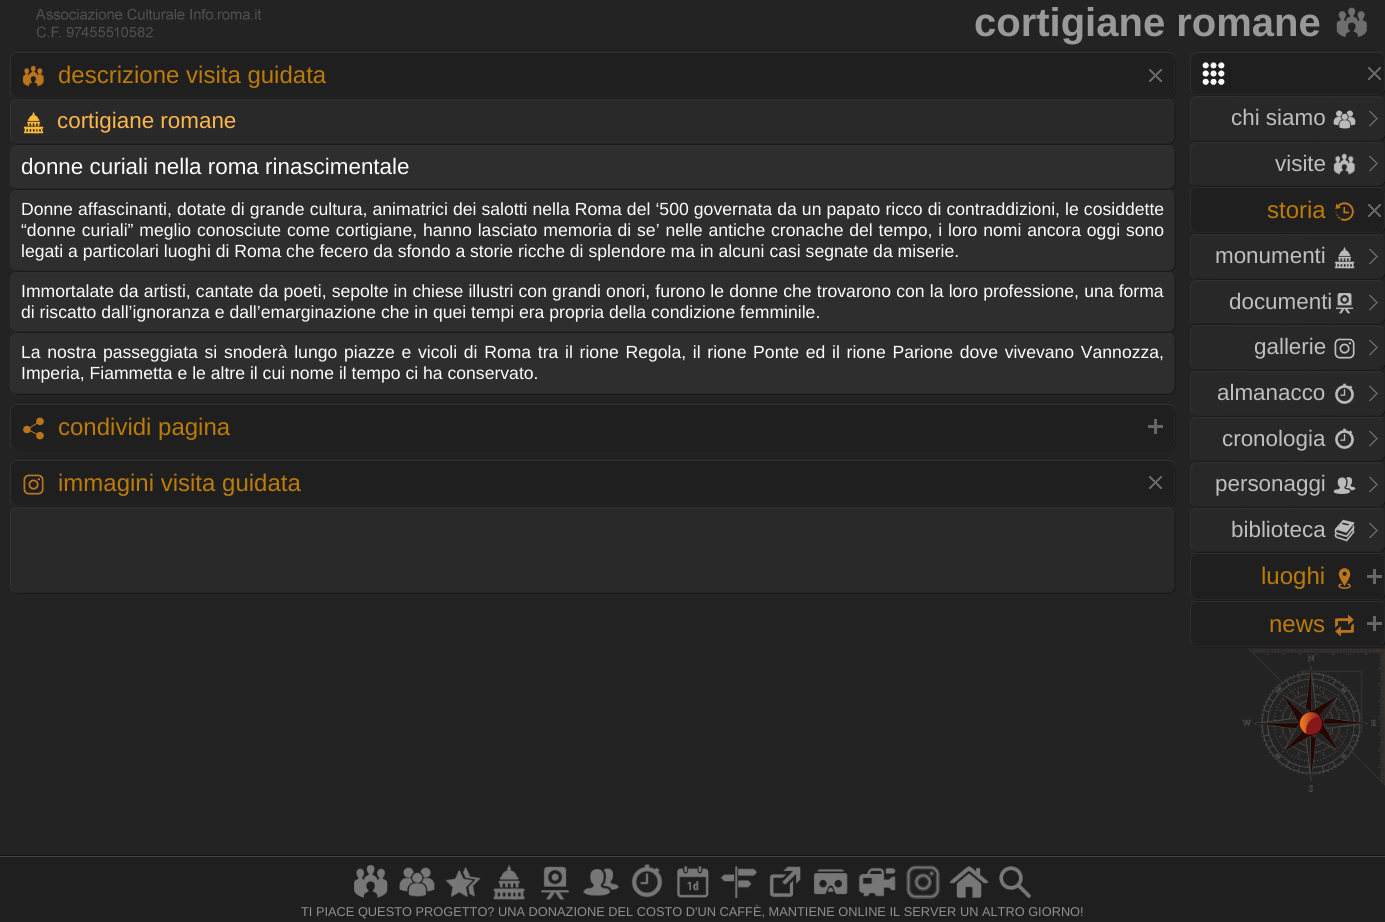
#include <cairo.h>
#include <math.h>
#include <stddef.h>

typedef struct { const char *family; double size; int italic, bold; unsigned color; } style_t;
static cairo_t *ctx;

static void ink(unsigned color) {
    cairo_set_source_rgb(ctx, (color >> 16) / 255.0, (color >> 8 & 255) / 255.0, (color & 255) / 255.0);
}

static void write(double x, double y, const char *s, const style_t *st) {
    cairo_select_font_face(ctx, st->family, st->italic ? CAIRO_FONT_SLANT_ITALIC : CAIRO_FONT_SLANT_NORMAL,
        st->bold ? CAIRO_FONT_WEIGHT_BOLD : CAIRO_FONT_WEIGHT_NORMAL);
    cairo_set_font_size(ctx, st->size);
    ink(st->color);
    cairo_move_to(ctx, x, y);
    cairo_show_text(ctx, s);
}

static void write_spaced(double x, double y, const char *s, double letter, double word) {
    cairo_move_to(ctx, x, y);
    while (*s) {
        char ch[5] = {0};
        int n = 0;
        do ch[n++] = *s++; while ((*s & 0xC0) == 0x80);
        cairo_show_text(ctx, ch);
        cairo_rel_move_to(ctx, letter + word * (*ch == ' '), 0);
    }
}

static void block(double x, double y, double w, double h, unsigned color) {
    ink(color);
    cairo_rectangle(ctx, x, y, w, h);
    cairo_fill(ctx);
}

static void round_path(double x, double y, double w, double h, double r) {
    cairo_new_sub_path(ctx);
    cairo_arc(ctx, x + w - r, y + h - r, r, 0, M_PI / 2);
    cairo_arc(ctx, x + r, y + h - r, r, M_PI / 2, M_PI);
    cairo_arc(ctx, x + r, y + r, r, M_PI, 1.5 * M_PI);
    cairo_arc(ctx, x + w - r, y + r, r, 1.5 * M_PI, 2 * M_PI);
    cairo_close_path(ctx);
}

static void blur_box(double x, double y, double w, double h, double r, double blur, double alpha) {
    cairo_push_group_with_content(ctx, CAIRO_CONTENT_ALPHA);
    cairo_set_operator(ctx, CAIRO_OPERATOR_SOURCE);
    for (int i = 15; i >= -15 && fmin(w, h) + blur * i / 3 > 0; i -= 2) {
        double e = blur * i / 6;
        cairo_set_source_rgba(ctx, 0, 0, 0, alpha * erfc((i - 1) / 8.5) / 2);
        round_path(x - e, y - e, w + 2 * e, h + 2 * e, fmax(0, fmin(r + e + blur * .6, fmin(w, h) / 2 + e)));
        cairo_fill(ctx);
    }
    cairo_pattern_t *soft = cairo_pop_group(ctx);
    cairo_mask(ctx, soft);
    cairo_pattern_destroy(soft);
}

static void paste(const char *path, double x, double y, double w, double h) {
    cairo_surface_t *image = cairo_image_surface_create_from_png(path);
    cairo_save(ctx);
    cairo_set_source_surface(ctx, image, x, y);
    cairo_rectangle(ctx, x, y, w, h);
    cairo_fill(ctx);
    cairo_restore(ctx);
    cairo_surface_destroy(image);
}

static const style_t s1 = {"Liberation Sans", 40, 0, 1, 0x999999};
static const style_t s2 = {"Liberation Sans", 22.4, 0, 0, 0xbfbfbf};
static const style_t s3 = {"Liberation Sans", 24, 0, 0, 0xbc7b09};
static const style_t s4 = {"Liberation Sans", 22.4, 0, 0, 0xffb74b};
static const style_t s5 = {"Liberation Sans", 22.4, 0, 0, 0xffffff};
static const style_t s6 = {"Liberation Sans", 17.6, 0, 0, 0xffffff};
static const style_t s7 = {"Liberation Sans", 12.8, 0, 0, 0x8f8f8f};

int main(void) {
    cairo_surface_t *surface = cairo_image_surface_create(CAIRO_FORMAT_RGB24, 1385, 922);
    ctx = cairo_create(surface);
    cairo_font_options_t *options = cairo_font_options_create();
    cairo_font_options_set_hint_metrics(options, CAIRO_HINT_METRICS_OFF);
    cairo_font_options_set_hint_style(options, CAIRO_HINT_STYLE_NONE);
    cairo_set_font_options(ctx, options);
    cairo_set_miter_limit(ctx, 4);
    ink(0x232323);
    cairo_paint(ctx);
    paste("pic1.png", 35, 8, 227, 30);
    write(974, 36, "cortigiane romane", &s1);
    paste("pic2.png", 1336, 7, 31, 30);
    ink(0x000000);
    blur_box(1192, 54, 193, 41, 6, 0.5, 1);
    ink(0x1f1f1f);
    round_path(1190, 52, 195, 43, 7);
    cairo_fill(ctx);
    paste("pic3.png", 1368, 67, 13, 13);
    cairo_new_path(ctx);
    cairo_move_to(ctx, 1382.5, 54.5);
    cairo_curve_to(ctx, 1384, 55.5, 1384.5, 57.5, 1384.5, 59);
    cairo_line_to(ctx, 1384.5, 88);
    cairo_curve_to(ctx, 1384.5, 89.5, 1384, 91.5, 1382.5, 92.5);
    cairo_curve_to(ctx, 1381.5, 94, 1379.5, 94.5, 1378, 94.5);
    cairo_line_to(ctx, 1197, 94.5);
    cairo_curve_to(ctx, 1195.5, 94.5, 1193.5, 94, 1192.5, 92.5);
    ink(0x272727);
    cairo_set_line_width(ctx, 1);
    cairo_stroke(ctx);
    cairo_new_path(ctx);
    cairo_move_to(ctx, 1192.5, 92.5);
    cairo_curve_to(ctx, 1191, 91.5, 1190.5, 89.5, 1190.5, 88);
    cairo_line_to(ctx, 1190.5, 59);
    cairo_curve_to(ctx, 1190.5, 57.5, 1191, 55.5, 1192.5, 54.5);
    cairo_curve_to(ctx, 1193.5, 53, 1195.5, 52.5, 1197, 52.5);
    cairo_line_to(ctx, 1378, 52.5);
    cairo_curve_to(ctx, 1379.5, 52.5, 1381.5, 53, 1382.5, 54.5);
    ink(0x303030);
    cairo_stroke(ctx);
    paste("pic4.png", 1202, 62, 23, 23);
    ink(0x000000);
    blur_box(1192, 98, 193, 43, 6, 0.5, 1);
    ink(0x282828);
    round_path(1190, 96, 195, 45, 7);
    cairo_fill(ctx);
    paste("pic5.png", 1369, 111, 9, 15);
    cairo_new_path(ctx);
    cairo_move_to(ctx, 1382.5, 98.5);
    cairo_curve_to(ctx, 1385, 101, 1384.5, 105, 1384.5, 108);
    cairo_line_to(ctx, 1384.5, 129);
    cairo_curve_to(ctx, 1384.5, 133.5, 1384.5, 140.5, 1378, 140.5);
    cairo_line_to(ctx, 1195, 140);
    cairo_line_to(ctx, 1192.5, 138.5);
    ink(0x252525);
    cairo_stroke(ctx);
    cairo_new_path(ctx);
    cairo_move_to(ctx, 1192.5, 138.5);
    cairo_curve_to(ctx, 1190, 136, 1190.5, 132, 1190.5, 129);
    cairo_line_to(ctx, 1190.5, 108);
    cairo_curve_to(ctx, 1190.5, 103.5, 1190.5, 96.5, 1197, 96.5);
    cairo_line_to(ctx, 1380, 97);
    cairo_line_to(ctx, 1382.5, 98.5);
    ink(0x323232);
    cairo_stroke(ctx);
    write(1231, 125, "chi siamo", &s2);
    paste("pic6.png", 1333, 110, 23, 19);
    ink(0x000000);
    blur_box(1192, 144, 193, 42, 6, 0.5, 1);
    ink(0x282828);
    round_path(1190, 142, 195, 44, 7);
    cairo_fill(ctx);
    paste("pic5.png", 1369, 156, 9, 15);
    cairo_new_path(ctx);
    cairo_move_to(ctx, 1382.5, 144.5);
    cairo_curve_to(ctx, 1384, 145.5, 1384.5, 147.5, 1384.5, 149);
    cairo_line_to(ctx, 1384.5, 179);
    cairo_curve_to(ctx, 1384.5, 180.5, 1384, 182.5, 1382.5, 183.5);
    cairo_curve_to(ctx, 1381.5, 185, 1379.5, 185.5, 1378, 185.5);
    cairo_line_to(ctx, 1197, 185.5);
    cairo_curve_to(ctx, 1195.5, 185.5, 1193.5, 185, 1192.5, 183.5);
    ink(0x252525);
    cairo_stroke(ctx);
    cairo_new_path(ctx);
    cairo_move_to(ctx, 1192.5, 183.5);
    cairo_curve_to(ctx, 1191, 182.5, 1190.5, 180.5, 1190.5, 179);
    cairo_line_to(ctx, 1190.5, 149);
    cairo_curve_to(ctx, 1190.5, 147.5, 1191, 145.5, 1192.5, 144.5);
    cairo_curve_to(ctx, 1193.5, 143, 1195.5, 142.5, 1197, 142.5);
    cairo_line_to(ctx, 1378, 142.5);
    cairo_curve_to(ctx, 1379.5, 142.5, 1381.5, 143, 1382.5, 144.5);
    ink(0x323232);
    cairo_stroke(ctx);
    write(1275, 171, "visite", &s2);
    paste("pic7.png", 1333, 153, 23, 22);
    ink(0x000000);
    blur_box(1192, 189, 193, 44, 6, 0.5, 1);
    ink(0x1f1f1f);
    round_path(1190, 187, 195, 46, 7);
    cairo_fill(ctx);
    paste("pic3.png", 1368, 204, 13, 13);
    cairo_new_path(ctx);
    cairo_move_to(ctx, 1382.5, 189.5);
    cairo_curve_to(ctx, 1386, 193, 1384.5, 200.5, 1384.5, 204.5);
    cairo_line_to(ctx, 1384.5, 220.5);
    cairo_curve_to(ctx, 1384.5, 225.5, 1385, 232.5, 1378, 232.5);
    cairo_line_to(ctx, 1195.5, 232.5);
    cairo_line_to(ctx, 1192.5, 230.5);
    ink(0x272727);
    cairo_stroke(ctx);
    cairo_new_path(ctx);
    cairo_move_to(ctx, 1192.5, 230.5);
    cairo_curve_to(ctx, 1189, 227, 1190.5, 219.5, 1190.5, 215.5);
    cairo_line_to(ctx, 1190.5, 199.5);
    cairo_curve_to(ctx, 1190.5, 194.5, 1190, 187.5, 1197, 187.5);
    cairo_line_to(ctx, 1379.5, 187.5);
    cairo_line_to(ctx, 1382.5, 189.5);
    ink(0x303030);
    cairo_stroke(ctx);
    write(1267, 218, "storia", &s3);
    paste("pic8.png", 1335, 202, 19, 19);
    ink(0x000000);
    blur_box(1192, 236, 193, 43, 6, 0.5, 1);
    ink(0x282828);
    round_path(1190, 234, 195, 45, 7);
    cairo_fill(ctx);
    paste("pic5.png", 1369, 249, 9, 15);
    cairo_new_path(ctx);
    cairo_move_to(ctx, 1382.5, 236.5);
    cairo_curve_to(ctx, 1385, 239, 1384.5, 243, 1384.5, 246);
    cairo_line_to(ctx, 1384.5, 267);
    cairo_curve_to(ctx, 1384.5, 271.5, 1384.5, 278.5, 1378, 278.5);
    cairo_line_to(ctx, 1195, 278);
    cairo_line_to(ctx, 1192.5, 276.5);
    ink(0x252525);
    cairo_stroke(ctx);
    cairo_new_path(ctx);
    cairo_move_to(ctx, 1192.5, 276.5);
    cairo_curve_to(ctx, 1190, 274, 1190.5, 270, 1190.5, 267);
    cairo_line_to(ctx, 1190.5, 246);
    cairo_curve_to(ctx, 1190.5, 241.5, 1190.5, 234.5, 1197, 234.5);
    cairo_line_to(ctx, 1380, 235);
    cairo_line_to(ctx, 1382.5, 236.5);
    ink(0x323232);
    cairo_stroke(ctx);
    write(1215, 263, "monumenti", &s2);
    paste("pic9.png", 1334, 246, 21, 23);
    ink(0x000000);
    blur_box(1192, 282, 193, 42, 6, 0.5, 1);
    ink(0x282828);
    round_path(1190, 280, 195, 44, 7);
    cairo_fill(ctx);
    paste("pic5.png", 1369, 295, 9, 15);
    cairo_new_path(ctx);
    cairo_move_to(ctx, 1382.5, 282.5);
    cairo_curve_to(ctx, 1384, 283.5, 1384.5, 285.5, 1384.5, 287);
    cairo_line_to(ctx, 1384.5, 317);
    cairo_curve_to(ctx, 1384.5, 318.5, 1384, 320.5, 1382.5, 321.5);
    cairo_curve_to(ctx, 1381.5, 323, 1379.5, 323.5, 1378, 323.5);
    cairo_line_to(ctx, 1197, 323.5);
    cairo_curve_to(ctx, 1195.5, 323.5, 1193.5, 323, 1192.5, 321.5);
    ink(0x252525);
    cairo_stroke(ctx);
    cairo_new_path(ctx);
    cairo_move_to(ctx, 1192.5, 321.5);
    cairo_curve_to(ctx, 1191, 320.5, 1190.5, 318.5, 1190.5, 317);
    cairo_line_to(ctx, 1190.5, 287);
    cairo_curve_to(ctx, 1190.5, 285.5, 1191, 283.5, 1192.5, 282.5);
    cairo_curve_to(ctx, 1193.5, 281, 1195.5, 280.5, 1197, 280.5);
    cairo_line_to(ctx, 1378, 280.5);
    cairo_curve_to(ctx, 1379.5, 280.5, 1381.5, 281, 1382.5, 282.5);
    ink(0x323232);
    cairo_stroke(ctx);
    write(1229, 309, "documenti", &s2);
    paste("pic10.png", 1336, 293, 18, 21);
    ink(0x000000);
    blur_box(1192, 327, 193, 43, 6, 0.5, 1);
    ink(0x282828);
    round_path(1190, 325, 195, 45, 7);
    cairo_fill(ctx);
    paste("pic5.png", 1369, 340, 9, 15);
    cairo_new_path(ctx);
    cairo_move_to(ctx, 1382.5, 327.5);
    cairo_curve_to(ctx, 1385, 330, 1384.5, 334, 1384.5, 337);
    cairo_line_to(ctx, 1384.5, 358);
    cairo_curve_to(ctx, 1384.5, 362.5, 1384.5, 369.5, 1378, 369.5);
    cairo_line_to(ctx, 1195, 369);
    cairo_line_to(ctx, 1192.5, 367.5);
    ink(0x252525);
    cairo_stroke(ctx);
    cairo_new_path(ctx);
    cairo_move_to(ctx, 1192.5, 367.5);
    cairo_curve_to(ctx, 1190, 365, 1190.5, 361, 1190.5, 358);
    cairo_line_to(ctx, 1190.5, 337);
    cairo_curve_to(ctx, 1190.5, 332.5, 1190.5, 325.5, 1197, 325.5);
    cairo_line_to(ctx, 1380, 326);
    cairo_line_to(ctx, 1382.5, 327.5);
    ink(0x323232);
    cairo_stroke(ctx);
    write(1254, 354, "gallerie", &s2);
    paste("pic11.png", 1334, 338, 21, 21);
    ink(0x000000);
    blur_box(1192, 373, 193, 43, 6, 0.5, 1);
    ink(0x282828);
    round_path(1190, 371, 195, 45, 7);
    cairo_fill(ctx);
    paste("pic5.png", 1369, 386, 9, 15);
    cairo_new_path(ctx);
    cairo_move_to(ctx, 1382.5, 373.5);
    cairo_curve_to(ctx, 1385, 376, 1384.5, 380, 1384.5, 383);
    cairo_line_to(ctx, 1384.5, 404);
    cairo_curve_to(ctx, 1384.5, 408.5, 1384.5, 415.5, 1378, 415.5);
    cairo_line_to(ctx, 1195, 415);
    cairo_line_to(ctx, 1192.5, 413.5);
    ink(0x252525);
    cairo_stroke(ctx);
    cairo_new_path(ctx);
    cairo_move_to(ctx, 1192.5, 413.5);
    cairo_curve_to(ctx, 1190, 411, 1190.5, 407, 1190.5, 404);
    cairo_line_to(ctx, 1190.5, 383);
    cairo_curve_to(ctx, 1190.5, 378.5, 1190.5, 371.5, 1197, 371.5);
    cairo_line_to(ctx, 1380, 372);
    cairo_line_to(ctx, 1382.5, 373.5);
    ink(0x323232);
    cairo_stroke(ctx);
    write(1217, 400, "almanacco", &s2);
    paste("pic12.png", 1335, 383, 19, 21);
    ink(0x000000);
    blur_box(1192, 419, 193, 42, 6, 0.5, 1);
    ink(0x282828);
    round_path(1190, 417, 195, 44, 7);
    cairo_fill(ctx);
    paste("pic5.png", 1369, 431, 9, 15);
    cairo_new_path(ctx);
    cairo_move_to(ctx, 1382.5, 419.5);
    cairo_curve_to(ctx, 1384, 420.5, 1384.5, 422.5, 1384.5, 424);
    cairo_line_to(ctx, 1384.5, 454);
    cairo_curve_to(ctx, 1384.5, 455.5, 1384, 457.5, 1382.5, 458.5);
    cairo_curve_to(ctx, 1381.5, 460, 1379.5, 460.5, 1378, 460.5);
    cairo_line_to(ctx, 1197, 460.5);
    cairo_curve_to(ctx, 1195.5, 460.5, 1193.5, 460, 1192.5, 458.5);
    ink(0x252525);
    cairo_stroke(ctx);
    cairo_new_path(ctx);
    cairo_move_to(ctx, 1192.5, 458.5);
    cairo_curve_to(ctx, 1191, 457.5, 1190.5, 455.5, 1190.5, 454);
    cairo_line_to(ctx, 1190.5, 424);
    cairo_curve_to(ctx, 1190.5, 422.5, 1191, 420.5, 1192.5, 419.5);
    cairo_curve_to(ctx, 1193.5, 418, 1195.5, 417.5, 1197, 417.5);
    cairo_line_to(ctx, 1378, 417.5);
    cairo_curve_to(ctx, 1379.5, 417.5, 1381.5, 418, 1382.5, 419.5);
    ink(0x323232);
    cairo_stroke(ctx);
    write(1222, 446, "cronologia", &s2);
    paste("pic12.png", 1335, 428, 19, 21);
    ink(0x000000);
    blur_box(1192, 464, 193, 43, 6, 0.5, 1);
    ink(0x282828);
    round_path(1190, 462, 195, 45, 7);
    cairo_fill(ctx);
    paste("pic5.png", 1369, 477, 9, 15);
    cairo_new_path(ctx);
    cairo_move_to(ctx, 1382.5, 464.5);
    cairo_curve_to(ctx, 1385, 467, 1384.5, 471, 1384.5, 474);
    cairo_line_to(ctx, 1384.5, 495);
    cairo_curve_to(ctx, 1384.5, 499.5, 1384.5, 506.5, 1378, 506.5);
    cairo_line_to(ctx, 1195, 506);
    cairo_line_to(ctx, 1192.5, 504.5);
    ink(0x252525);
    cairo_stroke(ctx);
    cairo_new_path(ctx);
    cairo_move_to(ctx, 1192.5, 504.5);
    cairo_curve_to(ctx, 1190, 502, 1190.5, 498, 1190.5, 495);
    cairo_line_to(ctx, 1190.5, 474);
    cairo_curve_to(ctx, 1190.5, 469.5, 1190.5, 462.5, 1197, 462.5);
    cairo_line_to(ctx, 1380, 463);
    cairo_line_to(ctx, 1382.5, 464.5);
    ink(0x323232);
    cairo_stroke(ctx);
    write(1215, 491, "personaggi", &s2);
    paste("pic13.png", 1333, 477, 23, 17);
    ink(0x000000);
    blur_box(1192, 510, 193, 42, 6, 0.5, 1);
    ink(0x282828);
    round_path(1190, 508, 195, 44, 7);
    cairo_fill(ctx);
    paste("pic5.png", 1369, 523, 9, 15);
    cairo_new_path(ctx);
    cairo_move_to(ctx, 1382.5, 510.5);
    cairo_curve_to(ctx, 1384, 511.5, 1384.5, 513.5, 1384.5, 515);
    cairo_line_to(ctx, 1384.5, 545);
    cairo_curve_to(ctx, 1384.5, 546.5, 1384, 548.5, 1382.5, 549.5);
    cairo_curve_to(ctx, 1381.5, 551, 1379.5, 551.5, 1378, 551.5);
    cairo_line_to(ctx, 1197, 551.5);
    cairo_curve_to(ctx, 1195.5, 551.5, 1193.5, 551, 1192.5, 549.5);
    ink(0x252525);
    cairo_stroke(ctx);
    cairo_new_path(ctx);
    cairo_move_to(ctx, 1192.5, 549.5);
    cairo_curve_to(ctx, 1191, 548.5, 1190.5, 546.5, 1190.5, 545);
    cairo_line_to(ctx, 1190.5, 515);
    cairo_curve_to(ctx, 1190.5, 513.5, 1191, 511.5, 1192.5, 510.5);
    cairo_curve_to(ctx, 1193.5, 509, 1195.5, 508.5, 1197, 508.5);
    cairo_line_to(ctx, 1378, 508.5);
    cairo_curve_to(ctx, 1379.5, 508.5, 1381.5, 509, 1382.5, 510.5);
    ink(0x323232);
    cairo_stroke(ctx);
    write(1231, 537, "biblioteca", &s2);
    paste("pic14.png", 1334, 519, 21, 23);
    ink(0x000000);
    blur_box(1192, 555, 193, 45, 6, 0.5, 1);
    ink(0x1f1f1f);
    round_path(1190, 553, 195, 47, 7);
    cairo_fill(ctx);
    paste("pic15.png", 1367, 569, 15, 15);
    cairo_new_path(ctx);
    cairo_move_to(ctx, 1382.5, 555.5);
    cairo_curve_to(ctx, 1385.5, 558, 1384.5, 562, 1384.5, 565.5);
    cairo_line_to(ctx, 1384.5, 587.5);
    cairo_curve_to(ctx, 1384.5, 592.5, 1385, 599.5, 1378, 599.5);
    cairo_line_to(ctx, 1195.5, 599.5);
    cairo_line_to(ctx, 1192.5, 597.5);
    ink(0x272727);
    cairo_stroke(ctx);
    cairo_new_path(ctx);
    cairo_move_to(ctx, 1192.5, 597.5);
    cairo_curve_to(ctx, 1189.5, 595, 1190.5, 591, 1190.5, 587.5);
    cairo_line_to(ctx, 1190.5, 565.5);
    cairo_curve_to(ctx, 1190.5, 560.5, 1190, 553.5, 1197, 553.5);
    cairo_line_to(ctx, 1379.5, 553.5);
    cairo_line_to(ctx, 1382.5, 555.5);
    ink(0x303030);
    cairo_stroke(ctx);
    write(1261, 584, "luoghi", &s3);
    paste("pic16.png", 1338, 568, 13, 21);
    ink(0x000000);
    blur_box(1192, 603, 193, 44, 6, 0.5, 1);
    ink(0x1f1f1f);
    round_path(1190, 601, 195, 46, 7);
    cairo_fill(ctx);
    paste("pic15.png", 1367, 616, 15, 15);
    cairo_new_path(ctx);
    cairo_move_to(ctx, 1382.5, 603.5);
    cairo_curve_to(ctx, 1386, 607, 1384.5, 614.5, 1384.5, 618.5);
    cairo_line_to(ctx, 1384.5, 634.5);
    cairo_curve_to(ctx, 1384.5, 639.5, 1385, 646.5, 1378, 646.5);
    cairo_line_to(ctx, 1195.5, 646.5);
    cairo_line_to(ctx, 1192.5, 644.5);
    ink(0x272727);
    cairo_stroke(ctx);
    cairo_new_path(ctx);
    cairo_move_to(ctx, 1192.5, 644.5);
    cairo_curve_to(ctx, 1189, 641, 1190.5, 633.5, 1190.5, 629.5);
    cairo_line_to(ctx, 1190.5, 613.5);
    cairo_curve_to(ctx, 1190.5, 608.5, 1190, 601.5, 1197, 601.5);
    cairo_line_to(ctx, 1379.5, 601.5);
    cairo_line_to(ctx, 1382.5, 603.5);
    ink(0x303030);
    cairo_stroke(ctx);
    write(1269, 632, "news", &s3);
    paste("pic17.png", 1335, 614, 19, 23);
    paste("pic18.png", 1242, 648, 143, 144);
    ink(0x000000);
    blur_box(12, 54, 1163, 44, 6, 0.5, 1);
    ink(0x1f1f1f);
    round_path(10, 52, 1165, 46, 7);
    cairo_fill(ctx);
    paste("pic3.png", 1149, 69, 13, 13);
    cairo_new_path(ctx);
    cairo_move_to(ctx, 1172.5, 54.5);
    cairo_curve_to(ctx, 1174, 55.5, 1174.5, 57.5, 1174.5, 59);
    cairo_line_to(ctx, 1174.5, 91);
    cairo_curve_to(ctx, 1174.5, 92.5, 1174, 94.5, 1172.5, 95.5);
    cairo_curve_to(ctx, 1171.5, 97, 1169.5, 97.5, 1168, 97.5);
    cairo_line_to(ctx, 17, 97.5);
    cairo_curve_to(ctx, 15.5, 97.5, 13.5, 97, 12.5, 95.5);
    ink(0x272727);
    cairo_stroke(ctx);
    cairo_new_path(ctx);
    cairo_move_to(ctx, 12.5, 95.5);
    cairo_curve_to(ctx, 11, 94.5, 10.5, 92.5, 10.5, 91);
    cairo_line_to(ctx, 10.5, 59);
    cairo_curve_to(ctx, 10.5, 57.5, 11, 55.5, 12.5, 54.5);
    cairo_curve_to(ctx, 13.5, 53, 15.5, 52.5, 17, 52.5);
    cairo_line_to(ctx, 1168, 52.5);
    cairo_curve_to(ctx, 1169.5, 52.5, 1171.5, 53, 1172.5, 54.5);
    ink(0x303030);
    cairo_stroke(ctx);
    paste("pic19.png", 22, 65, 23, 22);
    write(58, 83, "descrizione visita guidata", &s3);
    ink(0x000000);
    blur_box(12, 101, 1163, 43, 6, 0.5, 1);
    ink(0x292929);
    round_path(10, 99, 1165, 45, 7);
    cairo_fill(ctx);
    cairo_new_path(ctx);
    cairo_move_to(ctx, 1172.5, 101.5);
    cairo_curve_to(ctx, 1174, 102.5, 1174.5, 104.5, 1174.5, 106);
    cairo_line_to(ctx, 1174.5, 137);
    cairo_curve_to(ctx, 1174.5, 138.5, 1174, 140.5, 1172.5, 141.5);
    cairo_curve_to(ctx, 1171.5, 143, 1169.5, 143.5, 1168, 143.5);
    cairo_line_to(ctx, 17, 143.5);
    cairo_curve_to(ctx, 15.5, 143.5, 13.5, 143, 12.5, 141.5);
    ink(0x252525);
    cairo_stroke(ctx);
    cairo_new_path(ctx);
    cairo_move_to(ctx, 12.5, 141.5);
    cairo_curve_to(ctx, 11, 140.5, 10.5, 138.5, 10.5, 137);
    cairo_line_to(ctx, 10.5, 106);
    cairo_curve_to(ctx, 10.5, 104.5, 11, 102.5, 12.5, 101.5);
    cairo_curve_to(ctx, 13.5, 100, 15.5, 99.5, 17, 99.5);
    cairo_line_to(ctx, 1168, 99.5);
    cairo_curve_to(ctx, 1169.5, 99.5, 1171.5, 100, 1172.5, 101.5);
    ink(0x323232);
    cairo_stroke(ctx);
    paste("pic20.png", 23, 111, 21, 23);
    write(57, 128, "cortigiane romane", &s4);
    ink(0x000000);
    blur_box(12, 147, 1163, 42, 6, 0.5, 1);
    ink(0x2e2e2e);
    round_path(10, 145, 1165, 44, 7);
    cairo_fill(ctx);
    cairo_new_path(ctx);
    cairo_move_to(ctx, 1172.5, 147.5);
    cairo_curve_to(ctx, 1174, 148.5, 1174.5, 150.5, 1174.5, 152);
    cairo_line_to(ctx, 1174.5, 182);
    cairo_curve_to(ctx, 1174.5, 183.5, 1174, 185.5, 1172.5, 186.5);
    cairo_curve_to(ctx, 1171.5, 188, 1169.5, 188.5, 1168, 188.5);
    cairo_line_to(ctx, 17, 188.5);
    cairo_curve_to(ctx, 15.5, 188.5, 13.5, 188, 12.5, 186.5);
    ink(0x272727);
    cairo_stroke(ctx);
    cairo_new_path(ctx);
    cairo_move_to(ctx, 12.5, 186.5);
    cairo_curve_to(ctx, 11, 185.5, 10.5, 183.5, 10.5, 182);
    cairo_line_to(ctx, 10.5, 152);
    cairo_curve_to(ctx, 10.5, 150.5, 11, 148.5, 12.5, 147.5);
    cairo_curve_to(ctx, 13.5, 146, 15.5, 145.5, 17, 145.5);
    cairo_line_to(ctx, 1168, 145.5);
    cairo_curve_to(ctx, 1169.5, 145.5, 1171.5, 146, 1172.5, 147.5);
    ink(0x303030);
    cairo_stroke(ctx);
    write(21, 174, "donne curiali nella roma rinascimentale", &s5);
    ink(0x000000);
    blur_box(12, 192, 1163, 79, 6, 0.5, 1);
    ink(0x2e2e2e);
    round_path(10, 190, 1165, 81, 7);
    cairo_fill(ctx);
    cairo_new_path(ctx);
    cairo_move_to(ctx, 1172.5, 192.5);
    cairo_curve_to(ctx, 1174, 193.5, 1174.5, 195.5, 1174.5, 197);
    cairo_line_to(ctx, 1174.5, 264);
    cairo_curve_to(ctx, 1174.5, 265.5, 1174, 267.5, 1172.5, 268.5);
    cairo_curve_to(ctx, 1171.5, 270, 1169.5, 270.5, 1168, 270.5);
    cairo_line_to(ctx, 17, 270.5);
    cairo_curve_to(ctx, 15.5, 270.5, 13.5, 270, 12.5, 268.5);
    ink(0x272727);
    cairo_stroke(ctx);
    cairo_new_path(ctx);
    cairo_move_to(ctx, 12.5, 268.5);
    cairo_curve_to(ctx, 11, 267.5, 10.5, 265.5, 10.5, 264);
    cairo_line_to(ctx, 10.5, 197);
    cairo_curve_to(ctx, 10.5, 195.5, 11, 193.5, 12.5, 192.5);
    cairo_curve_to(ctx, 13.5, 191, 15.5, 190.5, 17, 190.5);
    cairo_line_to(ctx, 1168, 190.5);
    cairo_curve_to(ctx, 1169.5, 190.5, 1171.5, 191, 1172.5, 192.5);
    ink(0x303030);
    cairo_stroke(ctx);
    cairo_set_font_size(ctx, 17.6);
    ink(0xffffff);
    write_spaced(21, 215, "Donne affascinanti, dotate di grande cultura, animatrici dei salotti nella Roma del ‘500 governata da un papato ricco di contraddizioni, le cosiddette", 0, 0.2);
    write_spaced(21, 236, "“donne curiali” meglio conosciute come cortigiane, hanno lasciato memoria di se’ nelle antiche cronache del tempo, i loro nomi ancora oggi sono", 0, 0.95);
    write(21, 257, "legati a particolari luoghi di Roma che fecero da sfondo a storie ricche di splendore ma in alcuni casi segnate da miserie.", &s6);
    ink(0x000000);
    blur_box(12, 274, 1163, 58, 6, 0.5, 1);
    ink(0x2e2e2e);
    round_path(10, 272, 1165, 60, 7);
    cairo_fill(ctx);
    cairo_new_path(ctx);
    cairo_move_to(ctx, 1172.5, 274.5);
    cairo_curve_to(ctx, 1174, 275.5, 1174.5, 277.5, 1174.5, 279);
    cairo_line_to(ctx, 1174.5, 325);
    cairo_curve_to(ctx, 1174.5, 326.5, 1174, 328.5, 1172.5, 329.5);
    cairo_curve_to(ctx, 1171.5, 331, 1169.5, 331.5, 1168, 331.5);
    cairo_line_to(ctx, 17, 331.5);
    cairo_curve_to(ctx, 15.5, 331.5, 13.5, 331, 12.5, 329.5);
    ink(0x272727);
    cairo_stroke(ctx);
    cairo_new_path(ctx);
    cairo_move_to(ctx, 12.5, 329.5);
    cairo_curve_to(ctx, 11, 328.5, 10.5, 326.5, 10.5, 325);
    cairo_line_to(ctx, 10.5, 279);
    cairo_curve_to(ctx, 10.5, 277.5, 11, 275.5, 12.5, 274.5);
    cairo_curve_to(ctx, 13.5, 273, 15.5, 272.5, 17, 272.5);
    cairo_line_to(ctx, 1168, 272.5);
    cairo_curve_to(ctx, 1169.5, 272.5, 1171.5, 273, 1172.5, 274.5);
    ink(0x303030);
    cairo_stroke(ctx);
    ink(0xffffff);
    write_spaced(21, 297, "Immortalate da artisti, cantate da poeti, sepolte in chiese illustri con grandi onori, furono le donne che trovarono con la loro professione, una forma", 0, 0.25);
    write(21, 318, "di riscatto dall’ignoranza e dall’emarginazione che in quei tempi era propria della condizione femminile.", &s6);
    ink(0x000000);
    blur_box(12, 335, 1163, 59, 6, 0.5, 1);
    ink(0x2e2e2e);
    round_path(10, 333, 1165, 61, 7);
    cairo_fill(ctx);
    cairo_new_path(ctx);
    cairo_move_to(ctx, 1172.5, 335.5);
    cairo_curve_to(ctx, 1174, 336.5, 1174.5, 338.5, 1174.5, 340);
    cairo_line_to(ctx, 1174.5, 387);
    cairo_curve_to(ctx, 1174.5, 388.5, 1174, 390.5, 1172.5, 391.5);
    cairo_curve_to(ctx, 1171.5, 393, 1169.5, 393.5, 1168, 393.5);
    cairo_line_to(ctx, 17, 393.5);
    cairo_curve_to(ctx, 15.5, 393.5, 13.5, 393, 12.5, 391.5);
    ink(0x272727);
    cairo_stroke(ctx);
    cairo_new_path(ctx);
    cairo_move_to(ctx, 12.5, 391.5);
    cairo_curve_to(ctx, 11, 390.5, 10.5, 388.5, 10.5, 387);
    cairo_line_to(ctx, 10.5, 340);
    cairo_curve_to(ctx, 10.5, 338.5, 11, 336.5, 12.5, 335.5);
    cairo_curve_to(ctx, 13.5, 334, 15.5, 333.5, 17, 333.5);
    cairo_line_to(ctx, 1168, 333.5);
    cairo_curve_to(ctx, 1169.5, 333.5, 1171.5, 334, 1172.5, 335.5);
    ink(0x303030);
    cairo_stroke(ctx);
    ink(0xffffff);
    write_spaced(21, 358, "La nostra passeggiata si snoderà lungo piazze e vicoli di Roma tra il rione Regola, il rione Ponte ed il rione Parione dove vivevano Vannozza,", 0, 1.8);
    write(21, 379, "Imperia, Fiammetta e le altre il cui nome il tempo ci ha conservato.", &s6);
    ink(0x000000);
    blur_box(12, 406, 1163, 44, 6, 0.5, 1);
    ink(0x1f1f1f);
    round_path(10, 404, 1165, 46, 7);
    cairo_fill(ctx);
    paste("pic15.png", 1148, 419, 15, 15);
    cairo_new_path(ctx);
    cairo_move_to(ctx, 1172.5, 406.5);
    cairo_curve_to(ctx, 1174, 407.5, 1174.5, 409.5, 1174.5, 411);
    cairo_line_to(ctx, 1174.5, 443);
    cairo_curve_to(ctx, 1174.5, 444.5, 1174, 446.5, 1172.5, 447.5);
    cairo_curve_to(ctx, 1171.5, 449, 1169.5, 449.5, 1168, 449.5);
    cairo_line_to(ctx, 17, 449.5);
    cairo_curve_to(ctx, 15.5, 449.5, 13.5, 449, 12.5, 447.5);
    ink(0x272727);
    cairo_stroke(ctx);
    cairo_new_path(ctx);
    cairo_move_to(ctx, 12.5, 447.5);
    cairo_curve_to(ctx, 11, 446.5, 10.5, 444.5, 10.5, 443);
    cairo_line_to(ctx, 10.5, 411);
    cairo_curve_to(ctx, 10.5, 409.5, 11, 407.5, 12.5, 406.5);
    cairo_curve_to(ctx, 13.5, 405, 15.5, 404.5, 17, 404.5);
    cairo_line_to(ctx, 1168, 404.5);
    cairo_curve_to(ctx, 1169.5, 404.5, 1171.5, 405, 1172.5, 406.5);
    ink(0x303030);
    cairo_stroke(ctx);
    paste("pic21.png", 23, 417, 21, 23);
    write(58, 435, "condividi pagina", &s3);
    ink(0x000000);
    blur_box(12, 462, 1163, 44, 6, 0.5, 1);
    ink(0x1f1f1f);
    round_path(10, 460, 1165, 46, 7);
    cairo_fill(ctx);
    paste("pic3.png", 1149, 476, 13, 13);
    cairo_new_path(ctx);
    cairo_move_to(ctx, 1172.5, 462.5);
    cairo_curve_to(ctx, 1174, 463.5, 1174.5, 465.5, 1174.5, 467);
    cairo_line_to(ctx, 1174.5, 499);
    cairo_curve_to(ctx, 1174.5, 500.5, 1174, 502.5, 1172.5, 503.5);
    cairo_curve_to(ctx, 1171.5, 505, 1169.5, 505.5, 1168, 505.5);
    cairo_line_to(ctx, 17, 505.5);
    cairo_curve_to(ctx, 15.5, 505.5, 13.5, 505, 12.5, 503.5);
    ink(0x272727);
    cairo_stroke(ctx);
    cairo_new_path(ctx);
    cairo_move_to(ctx, 12.5, 503.5);
    cairo_curve_to(ctx, 11, 502.5, 10.5, 500.5, 10.5, 499);
    cairo_line_to(ctx, 10.5, 467);
    cairo_curve_to(ctx, 10.5, 465.5, 11, 463.5, 12.5, 462.5);
    cairo_curve_to(ctx, 13.5, 461, 15.5, 460.5, 17, 460.5);
    cairo_line_to(ctx, 1168, 460.5);
    cairo_curve_to(ctx, 1169.5, 460.5, 1171.5, 461, 1172.5, 462.5);
    ink(0x303030);
    cairo_stroke(ctx);
    paste("pic22.png", 23, 474, 21, 21);
    write(58, 491, "immagini visita guidata", &s3);
    ink(0x000000);
    blur_box(12, 509, 1163, 84, 6, 0.5, 1);
    ink(0x292929);
    round_path(10, 507, 1165, 86, 7);
    cairo_fill(ctx);
    cairo_new_path(ctx);
    cairo_move_to(ctx, 1172.5, 509.5);
    cairo_curve_to(ctx, 1174, 510.5, 1174.5, 512.5, 1174.5, 514);
    cairo_line_to(ctx, 1174.5, 586);
    cairo_curve_to(ctx, 1174.5, 587.5, 1174, 589.5, 1172.5, 590.5);
    cairo_curve_to(ctx, 1171.5, 592, 1169.5, 592.5, 1168, 592.5);
    cairo_line_to(ctx, 17, 592.5);
    cairo_curve_to(ctx, 15.5, 592.5, 13.5, 592, 12.5, 590.5);
    ink(0x252525);
    cairo_stroke(ctx);
    cairo_new_path(ctx);
    cairo_move_to(ctx, 12.5, 590.5);
    cairo_curve_to(ctx, 11, 589.5, 10.5, 587.5, 10.5, 586);
    cairo_line_to(ctx, 10.5, 514);
    cairo_curve_to(ctx, 10.5, 512.5, 11, 510.5, 12.5, 509.5);
    cairo_curve_to(ctx, 13.5, 508, 15.5, 507.5, 17, 507.5);
    cairo_line_to(ctx, 1168, 507.5);
    cairo_curve_to(ctx, 1169.5, 507.5, 1171.5, 508, 1172.5, 509.5);
    ink(0x323232);
    cairo_stroke(ctx);
    ink(0x151515);
    blur_box(0, 855, 1385, 66, 0, 0.5, 1);
    block(0, 857, 1385, 65, 0x1f1f1f);
    block(0, 856, 1385, 1, 0x444444);
    paste("pic23.png", 354, 865, 34, 33);
    paste("pic24.png", 399, 867, 36, 30);
    paste("pic25.png", 445, 867, 36, 30);
    paste("pic26.png", 493, 864, 32, 36);
    paste("pic27.png", 541, 866, 29, 34);
    paste("pic28.png", 583, 868, 36, 28);
    paste("pic29.png", 631, 864, 32, 34);
    paste("pic30.png", 677, 866, 32, 32);
    paste("pic31.png", 720, 866, 37, 33);
    paste("pic32.png", 769, 866, 32, 32);
    paste("pic33.png", 814, 869, 34, 26);
    paste("pic34.png", 858, 867, 38, 30);
    paste("pic35.png", 906, 865, 34, 34);
    paste("pic36.png", 949, 866, 40, 32);
    paste("pic37.png", 999, 866, 32, 32);
    write(301, 916, "TI PIACE QUESTO PROGETTO? UNA DONAZIONE DEL COSTO D'UN CAFFÈ, MANTIENE ONLINE IL SERVER UN ALTRO GIORNO!", &s7);
    cairo_surface_write_to_png(surface, "screenshot.png");
    cairo_font_options_destroy(options);
    cairo_destroy(ctx);
    cairo_surface_destroy(surface);
    return 0;
}
